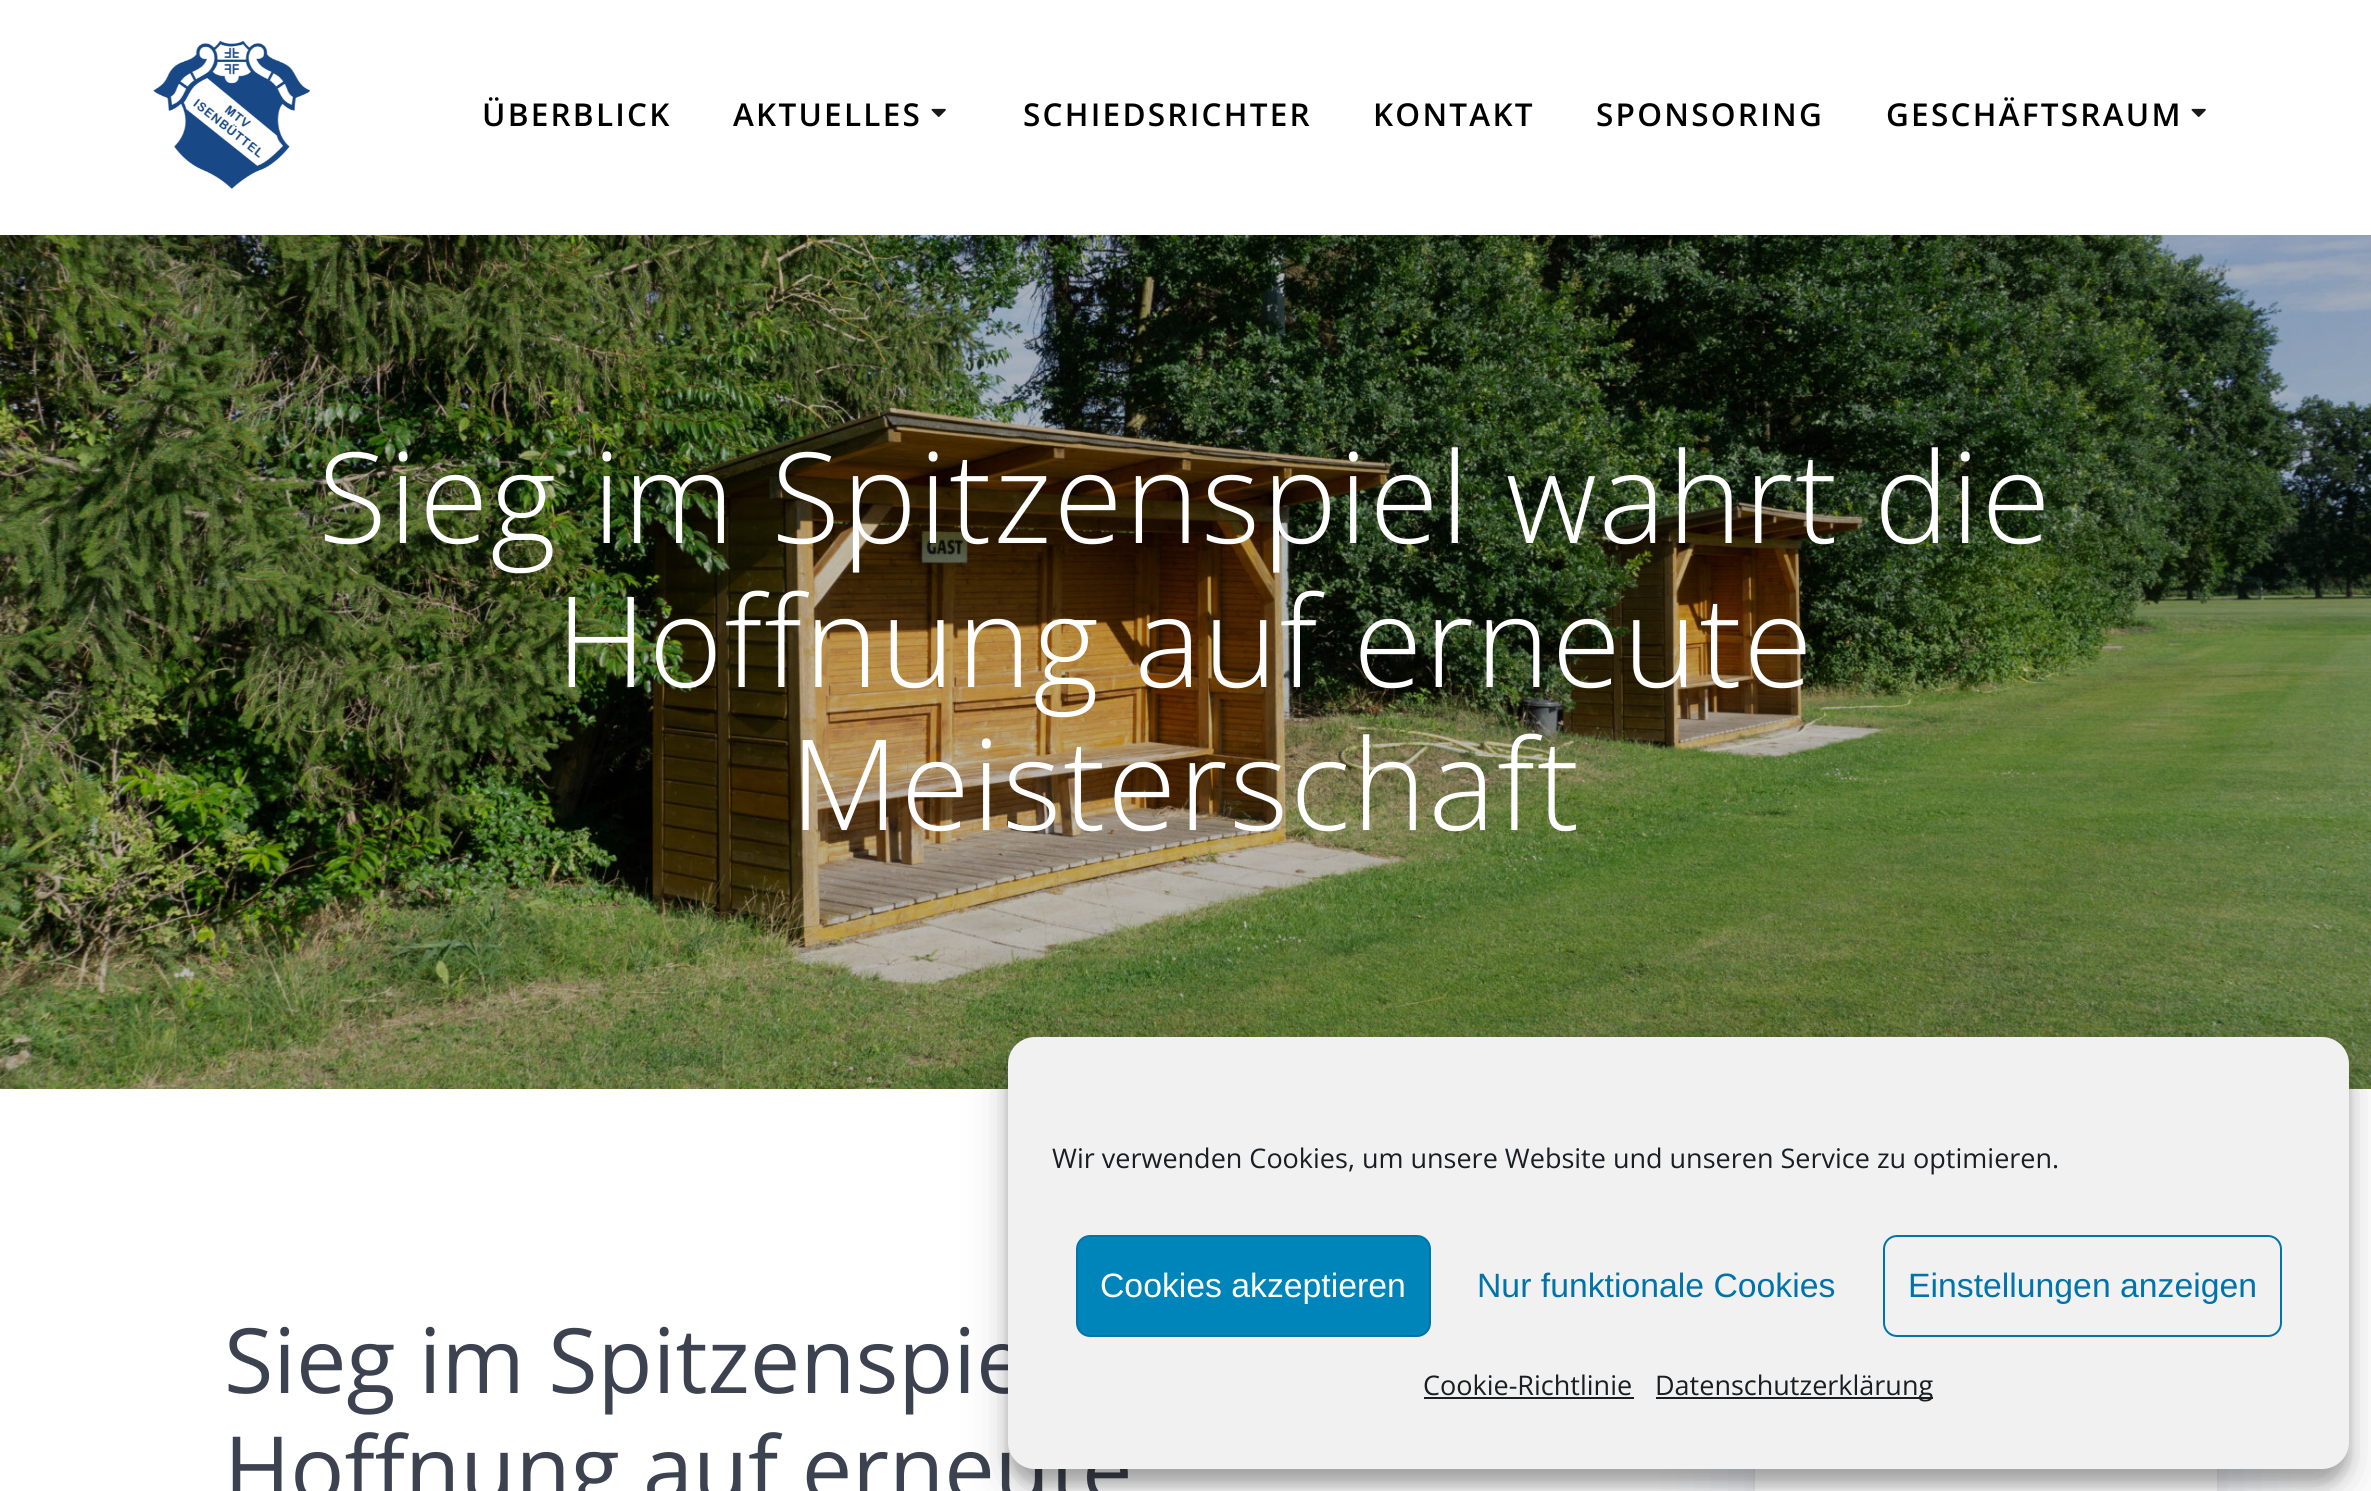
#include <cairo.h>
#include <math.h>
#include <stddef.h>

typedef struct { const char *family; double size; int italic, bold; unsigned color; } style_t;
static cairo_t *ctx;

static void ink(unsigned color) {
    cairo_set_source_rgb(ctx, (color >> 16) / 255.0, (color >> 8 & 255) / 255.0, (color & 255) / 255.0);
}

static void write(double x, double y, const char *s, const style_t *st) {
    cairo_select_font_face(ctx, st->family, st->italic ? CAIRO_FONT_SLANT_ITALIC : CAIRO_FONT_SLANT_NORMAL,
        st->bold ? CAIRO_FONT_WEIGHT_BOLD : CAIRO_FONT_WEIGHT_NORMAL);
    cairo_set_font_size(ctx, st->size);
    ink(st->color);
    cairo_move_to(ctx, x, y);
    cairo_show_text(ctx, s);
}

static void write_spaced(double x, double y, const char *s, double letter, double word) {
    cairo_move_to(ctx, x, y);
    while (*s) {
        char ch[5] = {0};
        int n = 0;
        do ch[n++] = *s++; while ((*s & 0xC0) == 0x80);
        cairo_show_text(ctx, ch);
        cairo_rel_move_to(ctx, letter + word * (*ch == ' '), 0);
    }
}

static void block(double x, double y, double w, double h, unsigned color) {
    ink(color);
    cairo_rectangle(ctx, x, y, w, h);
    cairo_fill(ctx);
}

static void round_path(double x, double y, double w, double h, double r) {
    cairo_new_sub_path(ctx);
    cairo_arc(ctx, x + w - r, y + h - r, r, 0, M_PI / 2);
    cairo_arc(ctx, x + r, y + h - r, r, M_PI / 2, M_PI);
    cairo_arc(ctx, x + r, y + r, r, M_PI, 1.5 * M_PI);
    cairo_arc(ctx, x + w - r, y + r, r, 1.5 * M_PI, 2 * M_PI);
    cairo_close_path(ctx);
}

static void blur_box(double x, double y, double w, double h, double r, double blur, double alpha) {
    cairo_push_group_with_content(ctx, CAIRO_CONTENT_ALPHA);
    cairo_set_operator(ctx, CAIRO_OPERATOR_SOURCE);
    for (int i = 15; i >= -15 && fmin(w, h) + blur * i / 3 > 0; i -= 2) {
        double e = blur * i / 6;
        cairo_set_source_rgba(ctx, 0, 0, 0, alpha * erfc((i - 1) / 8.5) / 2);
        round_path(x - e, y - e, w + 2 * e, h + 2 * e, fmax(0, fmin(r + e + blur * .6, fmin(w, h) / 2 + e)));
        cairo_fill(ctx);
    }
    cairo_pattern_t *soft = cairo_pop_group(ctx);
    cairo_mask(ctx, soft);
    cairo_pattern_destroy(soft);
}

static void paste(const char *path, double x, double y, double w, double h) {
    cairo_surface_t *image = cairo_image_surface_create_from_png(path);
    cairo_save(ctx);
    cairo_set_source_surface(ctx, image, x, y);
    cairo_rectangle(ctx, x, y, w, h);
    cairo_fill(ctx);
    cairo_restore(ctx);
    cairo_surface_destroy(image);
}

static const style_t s1 = {"Open Sans", 90, 0, 0, 0x3c424f};
static const style_t s2 = {"Open Sans", 27, 0, 0, 0x191e23};
static const style_t s3 = {"Liberation Sans", 33.75, 0, 0, 0xffffff};
static const style_t s4 = {"Liberation Sans", 33.75, 0, 0, 0x0073aa};

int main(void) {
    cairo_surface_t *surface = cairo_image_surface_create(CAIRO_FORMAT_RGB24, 2371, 1491);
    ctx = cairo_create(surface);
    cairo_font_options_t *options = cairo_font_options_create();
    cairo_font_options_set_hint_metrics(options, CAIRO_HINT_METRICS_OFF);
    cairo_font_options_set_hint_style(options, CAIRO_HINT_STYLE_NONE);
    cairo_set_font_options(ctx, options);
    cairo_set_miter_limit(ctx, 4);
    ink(0xffffff);
    cairo_paint(ctx);
    paste("pic1.png", 153, 40, 157, 149);
    cairo_select_font_face(ctx, "Open Sans SemiBold", CAIRO_FONT_SLANT_NORMAL, CAIRO_FONT_WEIGHT_NORMAL);
    cairo_set_font_size(ctx, 31.5);
    ink(0x000000);
    write_spaced(482, 126, "ÜBERBLICK", 2.25, 0);
    write_spaced(733, 126, "AKTUELLES", 2.25, 0);
    paste("pic2.png", 931, 108, 15, 9);
    write_spaced(1023, 126, "SCHIEDSRICHTER", 2.25, 0);
    write_spaced(1373, 126, "KONTAKT", 2.25, 0);
    write_spaced(1596, 126, "SPONSORING", 2.25, 0);
    write_spaced(1886, 126, "GESCHÄFTSRAUM", 2.25, 0);
    paste("pic2.png", 2191, 108, 15, 9);
    paste("pic3.png", 0, 235, 2371, 854);
    cairo_select_font_face(ctx, "Open Sans Light", CAIRO_FONT_SLANT_NORMAL, CAIRO_FONT_WEIGHT_NORMAL);
    cairo_set_font_size(ctx, 126);
    ink(0xffffff);
    write_spaced(318, 543, "Sieg im Spitzenspiel wahrt die", 2, 0);
    write_spaced(556, 687, "Hoffnung auf erneute", 2, -1);
    write_spaced(790, 830, "Meisterschaft", 2, 0);
    write(224, 1393, "Sieg im Spitzenspie", &s1);
    write(224, 1501, "Hoffnung auf erneute", &s1);
    ink(0x234598);
    blur_box(1753, 1325, 466, 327, 9, 50.5, 0.15);
    block(1755, 1469, 462, 22, 0xffffff);
    cairo_rectangle(ctx, 1754, 1306, 464, 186);
    ink(0xececec);
    cairo_stroke(ctx);
    ink(0x000000);
    blur_box(1008, 1051, 1341, 432, 27, 7, 0.23);
    blur_box(1008, 1060, 1341, 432, 27, 22.5, 0.19);
    ink(0xf1f1f1);
    round_path(1008, 1037, 1341, 432, 27);
    cairo_fill(ctx);
    write(1052, 1168, "Wir verwenden Cookies, um unsere Website und unseren Service zu optimieren.", &s2);
    ink(0x0085ba);
    round_path(1077, 1236, 353, 100, 13);
    cairo_fill_preserve(ctx);
    ink(0x0073aa);
    cairo_stroke(ctx);
    write(1100, 1297, "Cookies akzeptieren", &s3);
    write(1477, 1297, "Nur funktionale Cookies", &s4);
    round_path(1884, 1236, 397, 100, 13);
    cairo_stroke(ctx);
    write(1908, 1297, "Einstellungen anzeigen", &s4);
    write(1423, 1395, "Cookie-Richtlinie", &s2);
    block(1424, 1397, 210, 2, 0x191e23);
    block(1656, 1397, 277, 2, 0x191e23);
    write(1655, 1395, "Datenschutzerklärung", &s2);
    cairo_surface_write_to_png(surface, "screenshot.png");
    cairo_font_options_destroy(options);
    cairo_destroy(ctx);
    cairo_surface_destroy(surface);
    return 0;
}
